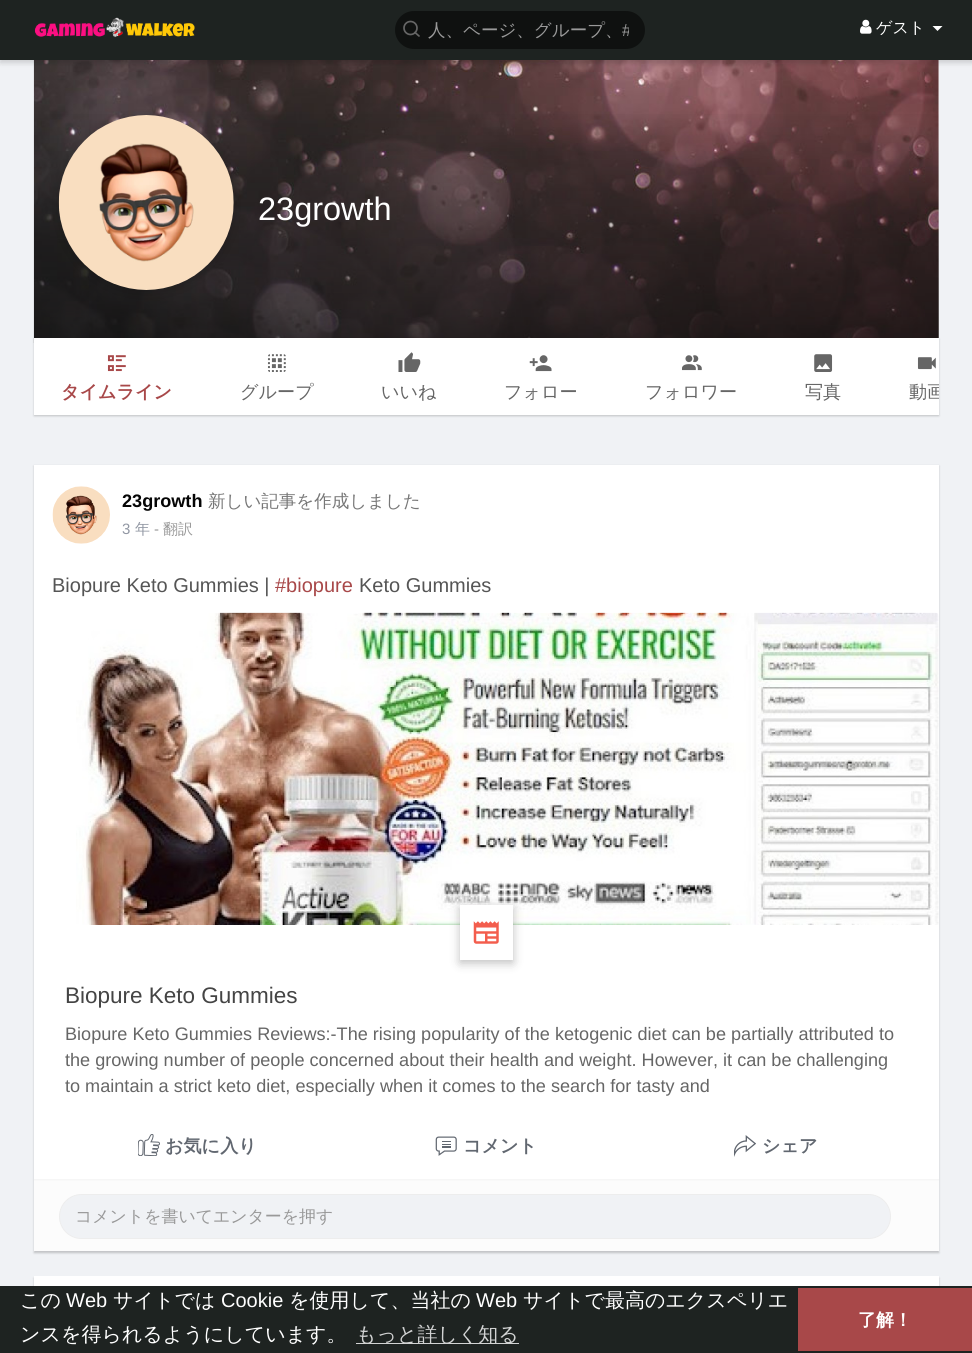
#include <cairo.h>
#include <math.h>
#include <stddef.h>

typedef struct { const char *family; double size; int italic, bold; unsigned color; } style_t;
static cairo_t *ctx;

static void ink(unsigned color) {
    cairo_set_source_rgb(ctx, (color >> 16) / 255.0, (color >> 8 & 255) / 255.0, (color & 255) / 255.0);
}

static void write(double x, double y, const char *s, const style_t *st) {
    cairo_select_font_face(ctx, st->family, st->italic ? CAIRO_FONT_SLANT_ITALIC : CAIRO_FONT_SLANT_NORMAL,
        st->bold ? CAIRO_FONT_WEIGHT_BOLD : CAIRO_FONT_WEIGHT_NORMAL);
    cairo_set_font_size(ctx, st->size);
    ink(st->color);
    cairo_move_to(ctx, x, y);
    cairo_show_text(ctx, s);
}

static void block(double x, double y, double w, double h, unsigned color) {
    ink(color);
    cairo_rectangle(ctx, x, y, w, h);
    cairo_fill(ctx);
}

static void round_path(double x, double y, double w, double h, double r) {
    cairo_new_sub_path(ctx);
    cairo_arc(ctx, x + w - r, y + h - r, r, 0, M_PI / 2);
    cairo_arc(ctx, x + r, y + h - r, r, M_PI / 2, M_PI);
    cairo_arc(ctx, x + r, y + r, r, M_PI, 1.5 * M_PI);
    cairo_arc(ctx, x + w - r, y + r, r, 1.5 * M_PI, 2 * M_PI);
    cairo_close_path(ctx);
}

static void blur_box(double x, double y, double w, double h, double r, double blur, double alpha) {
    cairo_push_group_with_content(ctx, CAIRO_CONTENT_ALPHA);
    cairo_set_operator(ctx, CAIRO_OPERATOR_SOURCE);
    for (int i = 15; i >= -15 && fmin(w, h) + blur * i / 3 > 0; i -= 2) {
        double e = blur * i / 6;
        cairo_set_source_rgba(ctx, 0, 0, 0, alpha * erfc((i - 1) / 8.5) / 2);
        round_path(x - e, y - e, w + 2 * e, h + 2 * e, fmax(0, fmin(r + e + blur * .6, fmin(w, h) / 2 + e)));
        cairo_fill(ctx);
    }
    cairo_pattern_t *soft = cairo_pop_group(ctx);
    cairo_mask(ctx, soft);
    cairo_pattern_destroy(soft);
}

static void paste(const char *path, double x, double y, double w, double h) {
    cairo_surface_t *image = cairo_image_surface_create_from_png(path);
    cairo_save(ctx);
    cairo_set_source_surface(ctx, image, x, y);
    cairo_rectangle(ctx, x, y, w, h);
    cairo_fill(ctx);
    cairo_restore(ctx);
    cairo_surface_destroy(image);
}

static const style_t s1 = {"WenQuanYi Zen Hei Medium", 17.5, 0, 0, 0x999999};
static const style_t s2 = {"Liberation Sans", 17.5, 0, 0, 0x999999};
static const style_t s3 = {"WenQuanYi Zen Hei Medium", 16, 0, 0, 0xffffff};
static const style_t s4 = {"Liberation Sans", 32.5, 0, 0, 0xffffff};
static const style_t s5 = {"WenQuanYi Zen Hei", 18.1, 0, 1, 0xa84849};
static const style_t s6 = {"WenQuanYi Zen Hei Medium", 18.1, 0, 0, 0x666666};
static const style_t s7 = {"Liberation Sans", 18.1, 0, 1, 0x050505};
static const style_t s8 = {"WenQuanYi Zen Hei Medium", 17.5, 0, 0, 0x777777};
static const style_t s9 = {"Liberation Sans", 15, 0, 0, 0x9197a3};
static const style_t s10 = {"WenQuanYi Zen Hei Medium", 15, 0, 0, 0x9197a3};
static const style_t s11 = {"Liberation Sans", 15, 0, 0, 0x999999};
static const style_t s12 = {"WenQuanYi Zen Hei Medium", 15, 0, 0, 0x999999};
static const style_t s13 = {"Liberation Sans", 20, 0, 0, 0x555555};
static const style_t s14 = {"Liberation Sans", 20, 0, 0, 0xa84849};
static const style_t s15 = {"Liberation Sans", 22.5, 0, 0, 0x444444};
static const style_t s16 = {"Liberation Sans", 18.1, 0, 0, 0x666666};
static const style_t s17 = {"WenQuanYi Zen Hei", 18.1, 0, 1, 0x616770};
static const style_t s18 = {"WenQuanYi Zen Hei Medium", 16.9, 0, 0, 0x999999};
static const style_t s19 = {"WenQuanYi Zen Hei Medium", 20, 0, 0, 0xffffff};
static const style_t s20 = {"Liberation Sans", 20, 0, 0, 0xffffff};
static const style_t s21 = {"WenQuanYi Zen Hei Medium", 20, 0, 0, 0xd2d3d3};
static const style_t s22 = {"WenQuanYi Zen Hei", 18, 0, 1, 0xffffff};

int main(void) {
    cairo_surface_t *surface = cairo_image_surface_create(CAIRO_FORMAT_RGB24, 972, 1353);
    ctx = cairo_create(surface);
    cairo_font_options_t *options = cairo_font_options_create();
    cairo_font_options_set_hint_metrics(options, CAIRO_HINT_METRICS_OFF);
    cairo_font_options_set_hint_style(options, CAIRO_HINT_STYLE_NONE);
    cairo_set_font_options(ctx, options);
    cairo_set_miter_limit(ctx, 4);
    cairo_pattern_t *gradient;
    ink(0xf0f2f5);
    cairo_paint(ctx);
    block(938, 60, 1, 278, 0xffffff);
    paste("pic3.png", 33, 60, 906, 283);
    ink(0x000000);
    blur_box(0, 3, 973, 60, 0, 2.5, 0.15);
    block(0, 0, 972, 60, 0x1e2321);
    paste("pic1.png", 34, 17, 161, 21);
    ink(0x0f1110);
    round_path(395, 11, 250, 38, 19);
    cairo_fill(ctx);
    cairo_arc(ctx, 410.5, 28, 6.5, 0, 2 * M_PI);
    ink(0x666666);
    cairo_set_line_width(ctx, 1.7);
    cairo_stroke(ctx);
    cairo_new_path(ctx);
    cairo_move_to(ctx, 419, 36);
    cairo_line_to(ctx, 415, 32.5);
    cairo_set_line_cap(ctx, CAIRO_LINE_CAP_ROUND);
    cairo_set_line_join(ctx, CAIRO_LINE_JOIN_ROUND);
    cairo_stroke(ctx);
    write(428, 36, "人、ページ、グループ、", &s1);
    cairo_save(ctx);
    cairo_rectangle(ctx, 428, 20, 201, 23);
    cairo_clip(ctx);
    write(622, 36, "#", &s2);
    cairo_restore(ctx);
    paste("pic2.png", 860, 19, 12, 15);
    write(876, 33, "ゲスト", &s3);
    cairo_new_path(ctx);
    cairo_move_to(ctx, 932.5, 26);
    cairo_line_to(ctx, 942.5, 26);
    cairo_line_to(ctx, 937.5, 31);
    cairo_close_path(ctx);
    cairo_fill(ctx);
    gradient = cairo_pattern_create_linear(486, 102, 486, 353);
    cairo_pattern_add_color_stop_rgba(gradient, 0, 0, 0, 0, 0);
    cairo_pattern_add_color_stop_rgba(gradient, 1, 0, 0, 0, 0.45);
    cairo_set_source(ctx, gradient);
    cairo_pattern_destroy(gradient);
    cairo_rectangle(ctx, 34, 114, 905, 224);
    cairo_fill(ctx);
    ink(0x000000);
    blur_box(59, 118, 175, 175, 87.5, 6, 0.15);
    paste("pic4.png", 58, 115, 176, 175);
    write(258, 220, "23growth", &s4);
    ink(0x000000);
    blur_box(34, 339, 905, 77, 0, 1, 0.2);
    block(34, 338, 905, 77, 0xffffff);
    paste("pic5.png", 107, 355, 19, 17);
    write(61, 398, "タイムライン", &s5);
    paste("pic6.png", 267, 354, 19, 18);
    write(240, 398, "グループ", &s6);
    paste("pic7.png", 398, 352, 23, 20);
    write(381, 398, "いいね", &s6);
    paste("pic8.png", 529, 355, 23, 17);
    write(504, 398, "フォロー", &s6);
    paste("pic9.png", 682, 355, 20, 16);
    write(645, 398, "フォロワー", &s6);
    paste("pic10.png", 814, 354, 19, 18);
    write(805, 398, "写真", &s6);
    paste("pic11.png", 917, 357, 19, 13);
    cairo_save(ctx);
    cairo_rectangle(ctx, 34, 338, 905, 78);
    cairo_clip(ctx);
    write(909, 398, "動画", &s6);
    cairo_restore(ctx);
    ink(0x000000);
    blur_box(34, 466, 905, 787, 0, 1, 0.2);
    block(34, 465, 905, 714, 0xffffff);
    paste("pic12.png", 52, 486, 58, 58);
    write(122, 507, "23growth", &s7);
    write(208, 507, "新しい記事を作成しました", &s8);
    write(122, 534, "3", &s9);
    write(135, 534, "年", &s10);
    write(154, 534, "-", &s11);
    write(163, 534, "翻訳", &s12);
    write(52, 592, "Biopure Keto Gummies |", &s13);
    write(275, 592, "#biopure", &s14);
    write(359, 592, "Keto Gummies", &s13);
    paste("pic13.png", 76, 612, 863, 313);
    ink(0x000000);
    blur_box(460, 908, 53, 55, 0, 5, 0.25);
    block(460, 905, 53, 55, 0xffffff);
    paste("pic14.png", 473, 921, 26, 23);
    write(65, 1003, "Biopure Keto Gummies", &s15);
    write(65, 1040, "Biopure Keto Gummies Reviews:-The rising popularity of the ketogenic diet can be partially attributed to", &s16);
    write(65, 1066, "the growing number of people concerned about their health and weight. However, it can be challenging", &s16);
    write(65, 1092, "to maintain a strict keto diet, especially when it comes to the search for tasty and", &s16);
    paste("pic15.png", 138, 1134, 22, 22);
    write(165, 1152, "お気に入り", &s17);
    paste("pic16.png", 435, 1136, 22, 20);
    write(463, 1152, "コメント", &s17);
    paste("pic17.png", 734, 1135, 22, 22);
    write(762, 1152, "シェア", &s17);
    block(34, 1181, 905, 70, 0xfcfcfc);
    block(34, 1179, 905, 1, 0xf6f6f6);
    block(34, 1180, 905, 1, 0xf9f9f9);
    ink(0xf0f2f5);
    round_path(59.5, 1194.5, 831, 44, 22);
    cairo_fill_preserve(ctx);
    ink(0xededed);
    cairo_set_line_width(ctx, 1);
    cairo_set_line_cap(ctx, CAIRO_LINE_CAP_BUTT);
    cairo_set_line_join(ctx, CAIRO_LINE_JOIN_MITER);
    cairo_stroke(ctx);
    write(75, 1222, "コメントを書いてエンターを押す", &s18);
    ink(0x000000);
    blur_box(34, 1278, 905, 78, 0, 1, 0.2);
    block(34, 1276, 905, 10, 0xffffff);
    block(0, 1286, 972, 67, 0x1e2321);
    write(20, 1307, "この", &s19);
    write(66, 1307, "Web", &s20);
    write(113, 1307, "サイトでは", &s19);
    write(221, 1307, "Cookie", &s20);
    write(289, 1307, "を使用して、当社の", &s19);
    write(476, 1307, "Web", &s20);
    write(523, 1307, "サイトで最高のエクスペリエ", &s19);
    write(20, 1341, "ンスを得られるようにしています。", &s19);
    block(356, 1343, 163, 1, 0xd2d3d3);
    write(356, 1341, "もっと詳しく知る", &s21);
    block(798, 1288, 174, 63, 0xa84849);
    write(858, 1326, "了解！", &s22);
    cairo_surface_write_to_png(surface, "screenshot.png");
    cairo_font_options_destroy(options);
    cairo_destroy(ctx);
    cairo_surface_destroy(surface);
    return 0;
}
